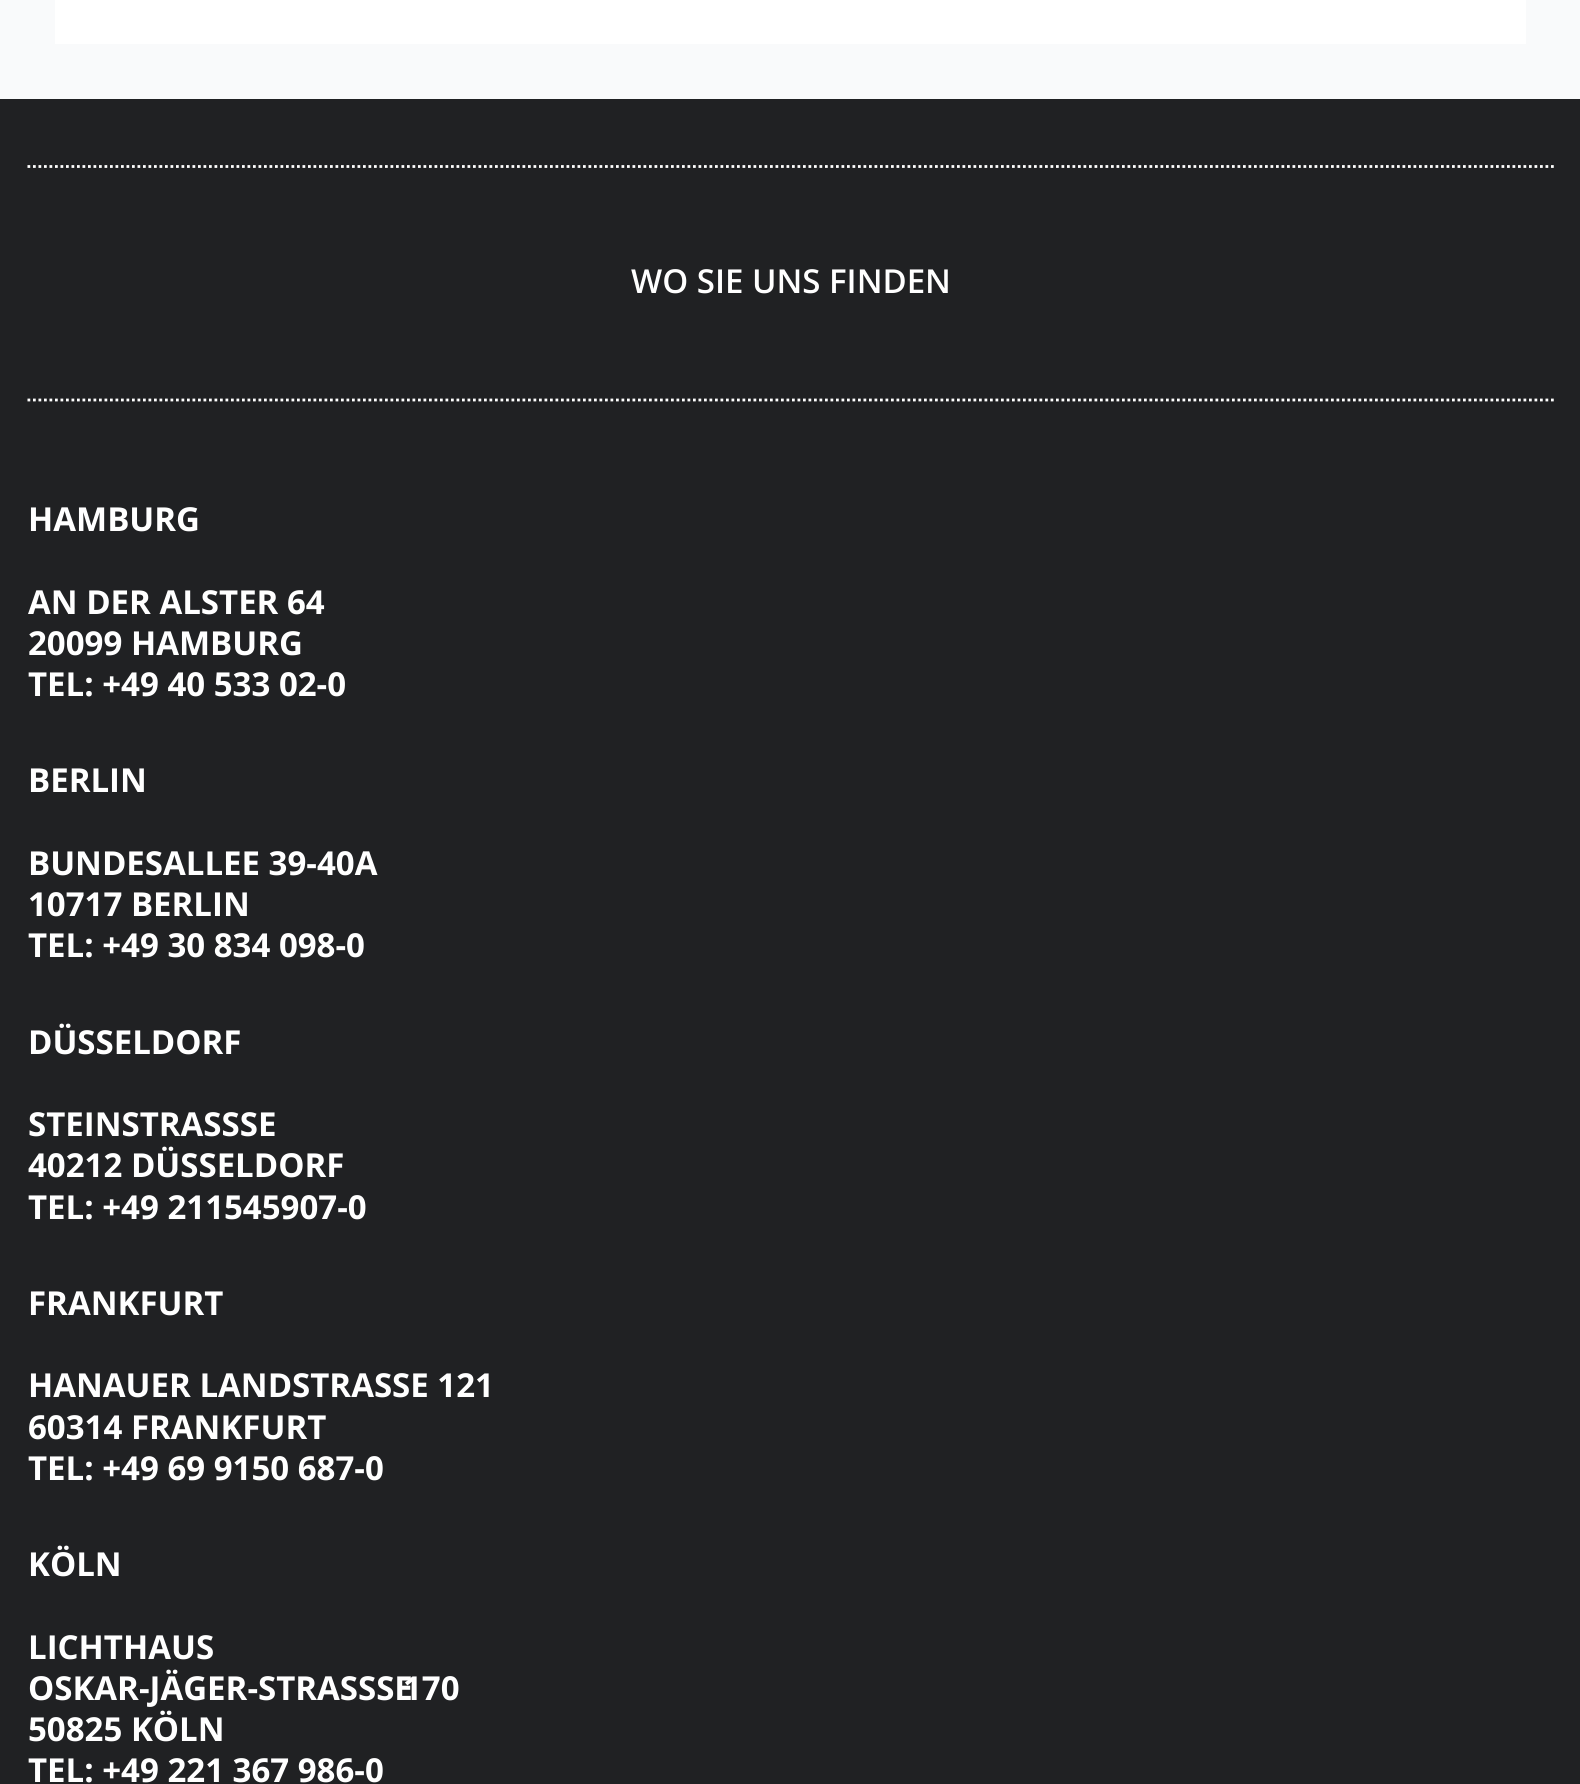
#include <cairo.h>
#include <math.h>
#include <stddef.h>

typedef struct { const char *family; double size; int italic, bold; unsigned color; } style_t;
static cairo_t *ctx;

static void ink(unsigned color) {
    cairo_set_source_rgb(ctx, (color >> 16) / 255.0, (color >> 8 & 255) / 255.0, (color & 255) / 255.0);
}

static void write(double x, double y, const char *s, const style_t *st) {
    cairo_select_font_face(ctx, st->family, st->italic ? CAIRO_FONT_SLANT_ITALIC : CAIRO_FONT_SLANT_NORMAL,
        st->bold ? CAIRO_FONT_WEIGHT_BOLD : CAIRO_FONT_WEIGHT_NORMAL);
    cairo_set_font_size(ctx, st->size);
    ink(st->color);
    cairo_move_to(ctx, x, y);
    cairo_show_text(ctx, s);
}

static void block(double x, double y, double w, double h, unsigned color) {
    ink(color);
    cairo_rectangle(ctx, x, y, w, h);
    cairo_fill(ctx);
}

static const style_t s1 = {"Open Sans SemiBold", 33, 0, 0, 0xffffff};
static const style_t s2 = {"Open Sans", 33, 0, 1, 0xffffff};

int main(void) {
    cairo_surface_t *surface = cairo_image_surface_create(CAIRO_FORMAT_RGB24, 1580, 1784);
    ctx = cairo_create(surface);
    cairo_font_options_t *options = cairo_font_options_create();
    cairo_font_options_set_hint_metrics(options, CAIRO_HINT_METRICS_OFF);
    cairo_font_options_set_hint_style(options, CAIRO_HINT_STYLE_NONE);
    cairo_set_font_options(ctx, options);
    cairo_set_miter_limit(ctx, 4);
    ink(0xf9fafb);
    cairo_paint(ctx);
    block(55, 0, 1471, 44, 0xffffff);
    block(0, 99, 1580, 1685, 0x202123);
    cairo_new_path(ctx);
    cairo_move_to(ctx, 27.5, 166.5);
    cairo_line_to(ctx, 1554, 166.5);
    ink(0xffffff);
    cairo_set_line_width(ctx, 2.8);
    cairo_set_dash(ctx, (double[]){2.75, 2.75}, 2, 0);
    cairo_stroke(ctx);
    write(631, 293, "WO SIE UNS FINDEN", &s1);
    cairo_new_path(ctx);
    cairo_move_to(ctx, 27.5, 400);
    cairo_line_to(ctx, 1554, 400);
    cairo_stroke(ctx);
    write(28, 531, "HAMBURG", &s2);
    write(28, 614, "AN DER ALSTER 64", &s2);
    write(28, 655, "20099 HAMBURG", &s2);
    write(28, 696, "TEL: +49 40 533 02-0", &s2);
    write(28, 792, "BERLIN", &s2);
    write(28, 875, "BUNDESALLEE 39-40A", &s2);
    write(28, 916, "10717 BERLIN", &s2);
    write(28, 957, "TEL: +49 30 834 098-0", &s2);
    write(28, 1054, "DÜSSELDORF", &s2);
    write(28, 1136, "STEINSTRASSSE", &s2);
    write(28, 1177, "40212 DÜSSELDORF", &s2);
    write(28, 1219, "TEL: +49 211545907-0", &s2);
    write(28, 1315, "FRANKFURT", &s2);
    write(28, 1397, "HANAUER LANDSTRASSE 121", &s2);
    write(28, 1439, "60314 FRANKFURT", &s2);
    write(28, 1480, "TEL: +49 69 9150 687-0", &s2);
    write(28, 1576, "KÖLN", &s2);
    write(28, 1659, "LICHTHAUS", &s2);
    write(28, 1700, "OSKAR-JÄGER-STRASSSE", &s2);
    write(403, 1700, "170", &s2);
    write(28, 1741, "50825 KÖLN", &s2);
    write(28, 1782, "TEL: +49 221 367 986-0", &s2);
    cairo_surface_write_to_png(surface, "screenshot.png");
    cairo_font_options_destroy(options);
    cairo_destroy(ctx);
    cairo_surface_destroy(surface);
    return 0;
}
